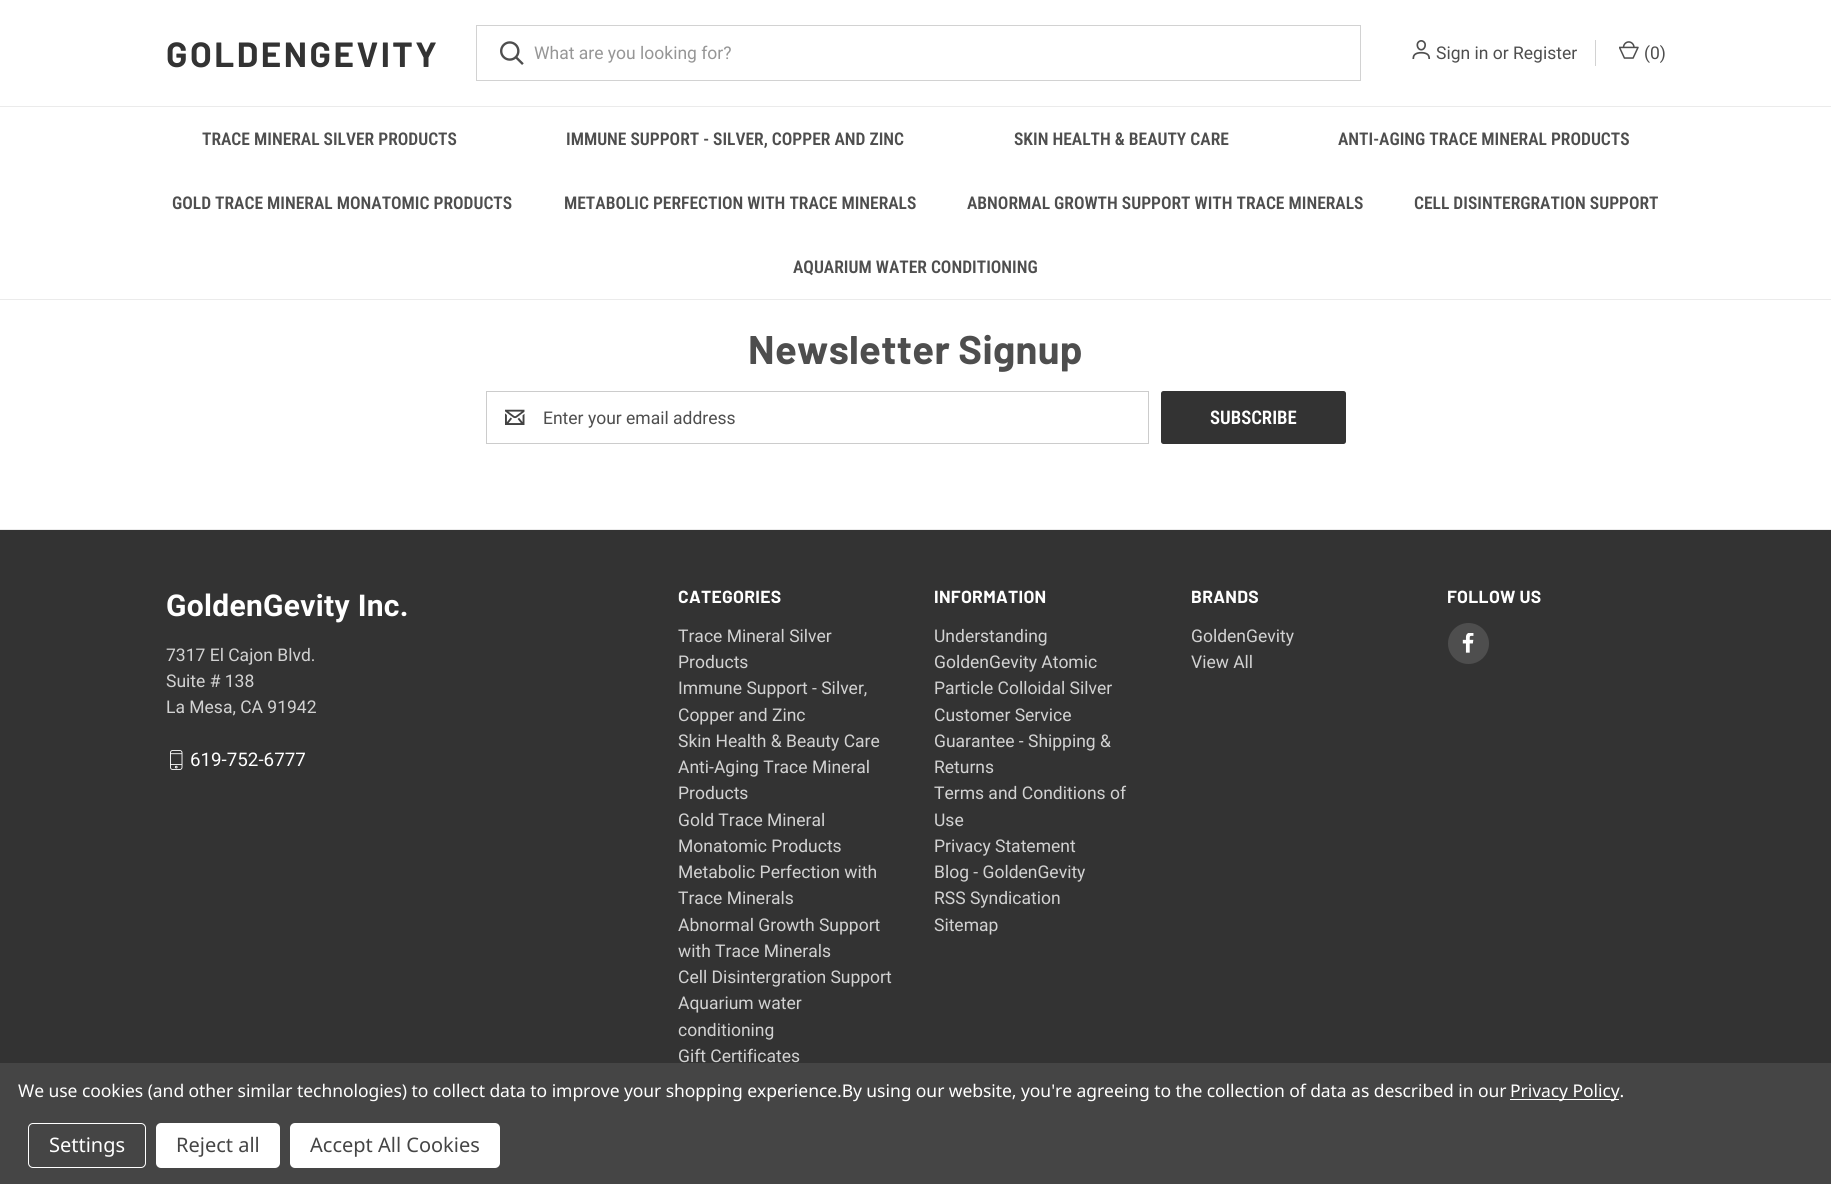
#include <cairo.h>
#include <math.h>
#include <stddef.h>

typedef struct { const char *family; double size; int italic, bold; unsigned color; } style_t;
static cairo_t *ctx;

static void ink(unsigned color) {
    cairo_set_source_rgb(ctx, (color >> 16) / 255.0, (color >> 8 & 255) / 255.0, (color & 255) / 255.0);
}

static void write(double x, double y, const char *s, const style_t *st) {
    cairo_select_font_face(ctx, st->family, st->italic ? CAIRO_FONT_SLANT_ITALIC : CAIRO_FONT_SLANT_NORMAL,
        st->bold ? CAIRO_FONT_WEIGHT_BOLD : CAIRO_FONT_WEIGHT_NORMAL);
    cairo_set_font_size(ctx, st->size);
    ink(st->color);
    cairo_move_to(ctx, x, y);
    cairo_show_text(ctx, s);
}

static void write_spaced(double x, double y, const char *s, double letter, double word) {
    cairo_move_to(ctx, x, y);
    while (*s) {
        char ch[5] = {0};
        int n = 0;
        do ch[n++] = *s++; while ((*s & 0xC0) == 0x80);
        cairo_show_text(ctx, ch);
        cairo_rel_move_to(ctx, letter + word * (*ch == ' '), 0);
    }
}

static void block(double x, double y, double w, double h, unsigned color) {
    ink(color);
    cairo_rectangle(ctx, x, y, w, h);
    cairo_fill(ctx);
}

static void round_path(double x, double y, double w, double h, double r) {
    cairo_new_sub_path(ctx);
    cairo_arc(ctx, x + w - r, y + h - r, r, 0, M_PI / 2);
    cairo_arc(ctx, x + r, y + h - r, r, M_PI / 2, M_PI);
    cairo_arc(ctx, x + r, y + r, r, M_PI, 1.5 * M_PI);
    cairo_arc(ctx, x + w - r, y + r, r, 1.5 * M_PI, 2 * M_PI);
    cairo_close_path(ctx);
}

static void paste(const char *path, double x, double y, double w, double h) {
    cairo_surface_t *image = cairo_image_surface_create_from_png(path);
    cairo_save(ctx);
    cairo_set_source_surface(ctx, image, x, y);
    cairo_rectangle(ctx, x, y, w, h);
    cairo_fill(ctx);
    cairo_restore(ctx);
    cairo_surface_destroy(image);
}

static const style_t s1 = {"Roboto", 17.5, 0, 0, 0x969696};
static const style_t s2 = {"Roboto", 17.5, 0, 0, 0x4e4e4e};
static const style_t s3 = {"Roboto Condensed SemiBold", 17.5, 0, 0, 0x4e4e4e};
static const style_t s4 = {"Roboto Condensed SemiBold", 18.75, 0, 0, 0xffffff};
static const style_t s5 = {"Roboto", 17.5, 0, 0, 0xd2d2d2};
static const style_t s6 = {"Roboto", 18.75, 0, 0, 0xffffff};
static const style_t s7 = {"Noto Sans", 20, 0, 0, 0xffffff};
static const style_t s8 = {"Noto Sans", 20, 0, 0, 0x454545};

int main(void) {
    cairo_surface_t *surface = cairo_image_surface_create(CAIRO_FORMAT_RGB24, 1831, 1184);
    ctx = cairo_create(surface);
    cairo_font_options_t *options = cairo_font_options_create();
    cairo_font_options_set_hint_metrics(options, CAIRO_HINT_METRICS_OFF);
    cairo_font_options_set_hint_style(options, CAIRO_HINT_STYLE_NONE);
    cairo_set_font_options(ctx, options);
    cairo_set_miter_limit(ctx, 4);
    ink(0xffffff);
    cairo_paint(ctx);
    cairo_select_font_face(ctx, "Barlow", CAIRO_FONT_SLANT_NORMAL, CAIRO_FONT_WEIGHT_BOLD);
    cairo_set_font_size(ctx, 35);
    ink(0x333333);
    write_spaced(166, 67, "GOLDENGEVITY", 2.5, 0);
    cairo_rectangle(ctx, 476.5, 25.5, 884, 55);
    ink(0xd2d2d2);
    cairo_set_line_width(ctx, 1);
    cairo_stroke(ctx);
    paste("pic1.png", 500, 41, 24, 24);
    write(534, 59, "What are you looking for?", &s1);
    paste("pic2.png", 1412, 40, 19, 19);
    write(1436, 59, "Sign in or Register", &s2);
    block(1595, 40, 1, 26, 0xd2d2d2);
    paste("pic3.png", 1619, 41, 20, 18);
    write(1644, 59, "(0)", &s2);
    block(0, 106, 1831, 1, 0xebebeb);
    block(0, 299, 1831, 1, 0xebebeb);
    write(202, 145, "TRACE MINERAL SILVER PRODUCTS", &s3);
    write(566, 145, "IMMUNE SUPPORT - SILVER, COPPER AND ZINC", &s3);
    write(1014, 145, "SKIN HEALTH & BEAUTY CARE", &s3);
    write(1338, 145, "ANTI-AGING TRACE MINERAL PRODUCTS", &s3);
    write(172, 209, "GOLD TRACE MINERAL MONATOMIC PRODUCTS", &s3);
    write(564, 209, "METABOLIC PERFECTION WITH TRACE MINERALS", &s3);
    write(967, 209, "ABNORMAL GROWTH SUPPORT WITH TRACE MINERALS", &s3);
    write(1414, 209, "CELL DISINTERGRATION SUPPORT", &s3);
    write(793, 273, "AQUARIUM WATER CONDITIONING", &s3);
    cairo_select_font_face(ctx, "Barlow", CAIRO_FONT_SLANT_NORMAL, CAIRO_FONT_WEIGHT_BOLD);
    cairo_set_font_size(ctx, 40);
    write_spaced(748, 364, "Newsletter Signup", 0.3, 0);
    cairo_rectangle(ctx, 486.5, 391.5, 662, 52);
    ink(0xcccccc);
    cairo_stroke(ctx);
    paste("pic4.png", 505, 409, 20, 16);
    write(543, 424, "Enter your email address", &s2);
    ink(0x333333);
    round_path(1161, 391, 185, 53, 2.5);
    cairo_fill(ctx);
    write(1210, 424, "SUBSCRIBE", &s4);
    block(0, 530, 1831, 533, 0x333333);
    block(0, 529, 1831, 1, 0xebebeb);
    cairo_select_font_face(ctx, "Roboto", CAIRO_FONT_SLANT_NORMAL, CAIRO_FONT_WEIGHT_BOLD);
    cairo_set_font_size(ctx, 30);
    ink(0xffffff);
    write_spaced(166, 616, "GoldenGevity Inc.", 0.3, 0);
    write(166, 661, "7317 El Cajon Blvd.", &s5);
    write(166, 687, "Suite # 138", &s5);
    write(166, 713, "La Mesa, CA 91942", &s5);
    paste("pic5.png", 170, 750, 13, 20);
    write(190, 766, "619-752-6777", &s6);
    cairo_select_font_face(ctx, "Barlow", CAIRO_FONT_SLANT_NORMAL, CAIRO_FONT_WEIGHT_BOLD);
    cairo_set_font_size(ctx, 17.5);
    write_spaced(678, 603, "CATEGORIES", 0.3, 0);
    write(678, 642, "Trace Mineral Silver", &s5);
    write(678, 668, "Products", &s5);
    write(678, 694, "Immune Support - Silver,", &s5);
    write(678, 721, "Copper and Zinc", &s5);
    write(678, 747, "Skin Health & Beauty Care", &s5);
    write(678, 773, "Anti-Aging Trace Mineral", &s5);
    write(678, 799, "Products", &s5);
    write(678, 826, "Gold Trace Mineral", &s5);
    write(678, 852, "Monatomic Products", &s5);
    write(678, 878, "Metabolic Perfection with", &s5);
    write(678, 904, "Trace Minerals", &s5);
    write(678, 931, "Abnormal Growth Support", &s5);
    write(678, 957, "with Trace Minerals", &s5);
    write(678, 983, "Cell Disintergration Support", &s5);
    write(678, 1009, "Aquarium water", &s5);
    write(678, 1036, "conditioning", &s5);
    write(678, 1062, "Gift Certificates", &s5);
    cairo_select_font_face(ctx, "Barlow", CAIRO_FONT_SLANT_NORMAL, CAIRO_FONT_WEIGHT_BOLD);
    ink(0xffffff);
    write_spaced(934, 603, "INFORMATION", 0.3, 0);
    write(934, 642, "Understanding", &s5);
    write(934, 668, "GoldenGevity Atomic", &s5);
    write(934, 694, "Particle Colloidal Silver", &s5);
    write(934, 721, "Customer Service", &s5);
    write(934, 747, "Guarantee - Shipping &", &s5);
    write(934, 773, "Returns", &s5);
    write(934, 799, "Terms and Conditions of", &s5);
    write(934, 826, "Use", &s5);
    write(934, 852, "Privacy Statement", &s5);
    write(934, 878, "Blog - GoldenGevity", &s5);
    write(934, 904, "RSS Syndication", &s5);
    write(934, 931, "Sitemap", &s5);
    cairo_select_font_face(ctx, "Barlow", CAIRO_FONT_SLANT_NORMAL, CAIRO_FONT_WEIGHT_BOLD);
    ink(0xffffff);
    write_spaced(1191, 603, "BRANDS", 0.3, 0);
    write(1191, 642, "GoldenGevity", &s5);
    write(1191, 668, "View All", &s5);
    cairo_select_font_face(ctx, "Barlow", CAIRO_FONT_SLANT_NORMAL, CAIRO_FONT_WEIGHT_BOLD);
    ink(0xffffff);
    write_spaced(1447, 603, "FOLLOW US", 0.3, 0);
    ink(0x4e4e4e);
    cairo_new_path(ctx);
    cairo_arc(ctx, 1468.5, 643.5, 20.5, 0, 2 * M_PI);
    cairo_fill(ctx);
    paste("pic6.png", 1462, 633, 12, 20);
    block(0, 1063, 1831, 121, 0x454545);
    cairo_select_font_face(ctx, "Noto Sans", CAIRO_FONT_SLANT_NORMAL, CAIRO_FONT_WEIGHT_NORMAL);
    ink(0xffffff);
    write_spaced(18, 1097, "We use cookies (and other similar technologies) to collect data to improve your shopping experience.By using our website, you're agreeing to the collection of data as described in our", -0.06, 0);
    block(1510, 1099, 109, 1, 0xffffff);
    write_spaced(1510, 1097, "Privacy Policy.", -0.06, 0);
    round_path(28.5, 1123.5, 117, 44, 4.5);
    cairo_stroke(ctx);
    write(49, 1152, "Settings", &s7);
    round_path(156, 1123, 124, 45, 5);
    cairo_fill(ctx);
    write(176, 1152, "Reject all", &s8);
    ink(0xffffff);
    round_path(290, 1123, 210, 45, 5);
    cairo_fill(ctx);
    write(310, 1152, "Accept All Cookies", &s8);
    cairo_surface_write_to_png(surface, "screenshot.png");
    cairo_font_options_destroy(options);
    cairo_destroy(ctx);
    cairo_surface_destroy(surface);
    return 0;
}
